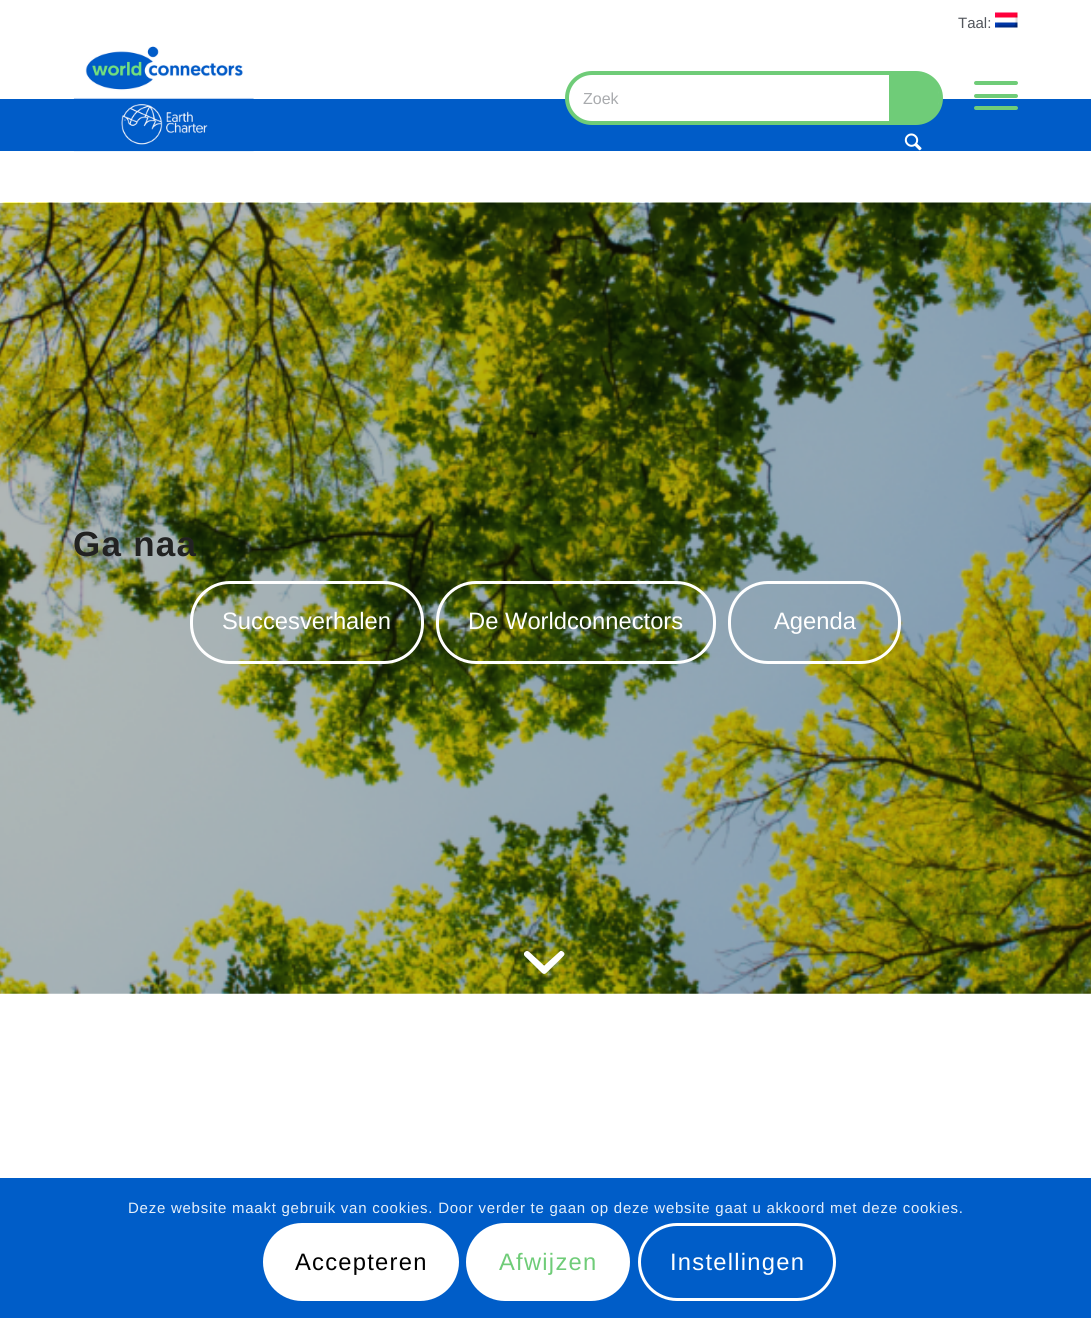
#include <cairo.h>
#include <math.h>
#include <stddef.h>

typedef struct { const char *family; double size; int italic, bold; unsigned color; } style_t;
static cairo_t *ctx;

static void ink(unsigned color) {
    cairo_set_source_rgb(ctx, (color >> 16) / 255.0, (color >> 8 & 255) / 255.0, (color & 255) / 255.0);
}

static void write(double x, double y, const char *s, const style_t *st) {
    cairo_select_font_face(ctx, st->family, st->italic ? CAIRO_FONT_SLANT_ITALIC : CAIRO_FONT_SLANT_NORMAL,
        st->bold ? CAIRO_FONT_WEIGHT_BOLD : CAIRO_FONT_WEIGHT_NORMAL);
    cairo_set_font_size(ctx, st->size);
    ink(st->color);
    cairo_move_to(ctx, x, y);
    cairo_show_text(ctx, s);
}

static void write_spaced(double x, double y, const char *s, double letter, double word) {
    cairo_move_to(ctx, x, y);
    while (*s) {
        char ch[5] = {0};
        int n = 0;
        do ch[n++] = *s++; while ((*s & 0xC0) == 0x80);
        cairo_show_text(ctx, ch);
        cairo_rel_move_to(ctx, letter + word * (*ch == ' '), 0);
    }
}

static void block(double x, double y, double w, double h, unsigned color) {
    ink(color);
    cairo_rectangle(ctx, x, y, w, h);
    cairo_fill(ctx);
}

static void round_path(double x, double y, double w, double h, double r) {
    cairo_new_sub_path(ctx);
    cairo_arc(ctx, x + w - r, y + h - r, r, 0, M_PI / 2);
    cairo_arc(ctx, x + r, y + h - r, r, M_PI / 2, M_PI);
    cairo_arc(ctx, x + r, y + r, r, M_PI, 1.5 * M_PI);
    cairo_arc(ctx, x + w - r, y + r, r, 1.5 * M_PI, 2 * M_PI);
    cairo_close_path(ctx);
}

static void paste(const char *path, double x, double y, double w, double h) {
    cairo_surface_t *image = cairo_image_surface_create_from_png(path);
    cairo_save(ctx);
    cairo_set_source_surface(ctx, image, x, y);
    cairo_rectangle(ctx, x, y, w, h);
    cairo_fill(ctx);
    cairo_restore(ctx);
    cairo_surface_destroy(image);
}

static const style_t s1 = {"Liberation Sans", 15, 0, 0, 0x52565c};
static const style_t s2 = {"Liberation Sans", 16, 0, 0, 0xa9abae};
static const style_t s3 = {"Liberation Sans", 23.75, 0, 0, 0xffffff};

int main(void) {
    cairo_surface_t *surface = cairo_image_surface_create(CAIRO_FORMAT_RGB24, 1091, 1318);
    ctx = cairo_create(surface);
    cairo_font_options_t *options = cairo_font_options_create();
    cairo_font_options_set_hint_metrics(options, CAIRO_HINT_METRICS_OFF);
    cairo_font_options_set_hint_style(options, CAIRO_HINT_STYLE_NONE);
    cairo_set_font_options(ctx, options);
    cairo_set_miter_limit(ctx, 4);
    ink(0xffffff);
    cairo_paint(ctx);
    write(958, 28, "Taal:", &s1);
    paste("pic1.png", 995, 12, 23, 16);
    block(0, 99, 1091, 52, 0x005cc8);
    paste("pic2.png", 73, 46, 181, 106);
    ink(0xffffff);
    round_path(567, 73, 374, 50, 25);
    cairo_fill_preserve(ctx);
    ink(0x6fcc78);
    cairo_set_line_width(ctx, 4);
    cairo_stroke(ctx);
    write(583, 104, "Zoek", &s2);
    ink(0x6fcc78);
    cairo_new_path(ctx);
    cairo_move_to(ctx, 889, 75);
    cairo_line_to(ctx, 920, 75);
    cairo_curve_to(ctx, 930.5, 75, 939, 83.5, 939, 94);
    cairo_line_to(ctx, 939, 102);
    cairo_curve_to(ctx, 939, 112.5, 930.5, 121, 920, 121);
    cairo_line_to(ctx, 889, 121);
    cairo_close_path(ctx);
    cairo_fill(ctx);
    paste("pic3.png", 904, 133, 18, 18);
    round_path(974, 94, 44, 4, 2);
    cairo_fill(ctx);
    round_path(974, 81, 44, 4, 2);
    cairo_fill(ctx);
    round_path(974, 106, 44, 4, 2);
    cairo_fill(ctx);
    paste("pic4.png", 0, 202, 1091, 792);
    cairo_select_font_face(ctx, "Liberation Sans", CAIRO_FONT_SLANT_NORMAL, CAIRO_FONT_WEIGHT_BOLD);
    cairo_set_font_size(ctx, 35);
    ink(0x222222);
    write_spaced(73, 556, "Ga naa", 1.25, 0);
    round_path(191.5, 582.5, 231, 80, 38.5);
    ink(0xffffff);
    cairo_set_line_width(ctx, 3);
    cairo_stroke(ctx);
    write(222, 629, "Succesverhalen", &s3);
    round_path(437.5, 582.5, 277, 80, 38.5);
    cairo_stroke(ctx);
    write(468, 629, "De Worldconnectors", &s3);
    round_path(729.5, 582.5, 170, 80, 38.5);
    cairo_stroke(ctx);
    write(774, 629, "Agenda", &s3);
    paste("pic5.png", 524, 950, 41, 24);
    block(0, 1178, 1091, 140, 0x005dc8);
    cairo_set_font_size(ctx, 15);
    ink(0xe6effa);
    write_spaced(128, 1213, "Deze website maakt gebruik van cookies. Door verder te gaan op deze website gaat u akkoord met deze cookies.", 0.75, 0);
    ink(0xffffff);
    round_path(263, 1223, 196, 78, 39);
    cairo_fill(ctx);
    cairo_set_font_size(ctx, 23.75);
    ink(0x000000);
    write_spaced(295, 1270, "Accepteren", 1.25, 0);
    ink(0xffffff);
    round_path(467.5, 1224.5, 161, 75, 37.5);
    cairo_fill_preserve(ctx);
    cairo_stroke(ctx);
    ink(0x6fcc78);
    write_spaced(499, 1270, "Afwijzen", 1.25, 0);
    round_path(639.5, 1224.5, 195, 75, 37.5);
    ink(0xffffff);
    cairo_stroke(ctx);
    write_spaced(670, 1270, "Instellingen", 1.25, 0);
    cairo_surface_write_to_png(surface, "screenshot.png");
    cairo_font_options_destroy(options);
    cairo_destroy(ctx);
    cairo_surface_destroy(surface);
    return 0;
}
